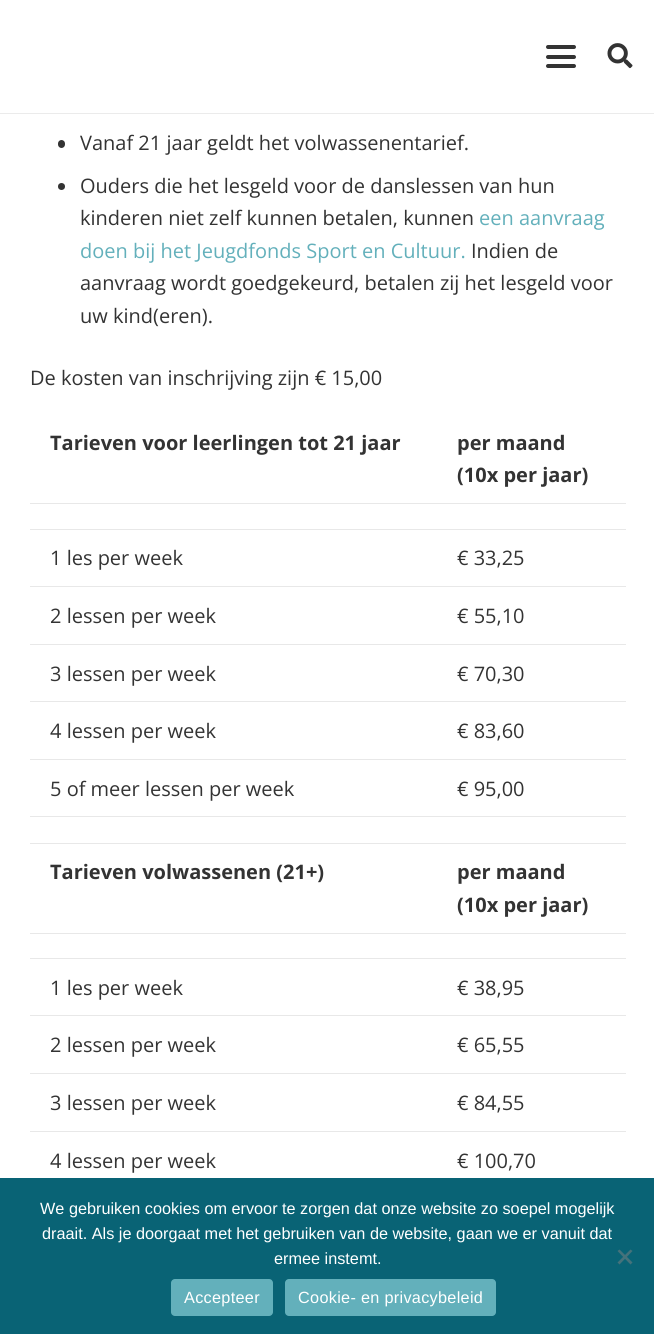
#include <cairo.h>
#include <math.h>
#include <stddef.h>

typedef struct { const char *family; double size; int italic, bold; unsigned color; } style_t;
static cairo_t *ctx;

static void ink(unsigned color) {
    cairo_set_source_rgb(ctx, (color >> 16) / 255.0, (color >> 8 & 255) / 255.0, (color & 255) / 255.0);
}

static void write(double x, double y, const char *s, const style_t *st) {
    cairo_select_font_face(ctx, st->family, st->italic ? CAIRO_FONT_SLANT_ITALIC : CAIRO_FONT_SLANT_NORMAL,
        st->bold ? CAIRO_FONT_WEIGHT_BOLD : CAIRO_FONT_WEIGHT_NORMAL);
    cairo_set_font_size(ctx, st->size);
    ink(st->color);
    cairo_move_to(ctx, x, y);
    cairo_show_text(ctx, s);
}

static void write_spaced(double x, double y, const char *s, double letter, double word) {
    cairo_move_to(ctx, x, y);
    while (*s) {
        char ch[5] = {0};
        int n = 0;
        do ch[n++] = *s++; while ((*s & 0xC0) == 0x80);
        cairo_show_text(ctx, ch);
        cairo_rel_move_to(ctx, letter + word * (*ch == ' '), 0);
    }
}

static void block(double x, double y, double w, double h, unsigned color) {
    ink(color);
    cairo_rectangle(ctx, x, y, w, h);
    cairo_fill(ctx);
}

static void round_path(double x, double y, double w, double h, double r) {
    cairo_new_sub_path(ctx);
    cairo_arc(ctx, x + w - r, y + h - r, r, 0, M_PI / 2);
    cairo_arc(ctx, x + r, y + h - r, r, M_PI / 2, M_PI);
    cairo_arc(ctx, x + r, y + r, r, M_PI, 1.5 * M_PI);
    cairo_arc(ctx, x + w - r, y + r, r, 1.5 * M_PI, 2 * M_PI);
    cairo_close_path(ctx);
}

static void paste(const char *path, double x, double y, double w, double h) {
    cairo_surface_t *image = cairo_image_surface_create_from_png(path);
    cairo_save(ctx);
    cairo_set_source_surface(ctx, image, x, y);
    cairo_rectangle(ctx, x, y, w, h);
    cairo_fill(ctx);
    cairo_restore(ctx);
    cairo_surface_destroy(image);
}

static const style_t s1 = {"Open Sans", 20, 0, 0, 0x333333};
static const style_t s2 = {"Open Sans", 20, 0, 0, 0x63b0bb};
static const style_t s3 = {"Open Sans", 20, 0, 1, 0x333333};
static const style_t s4 = {"Liberation Sans", 16.25, 0, 0, 0xffffff};

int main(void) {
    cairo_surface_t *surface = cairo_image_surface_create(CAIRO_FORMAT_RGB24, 654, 1334);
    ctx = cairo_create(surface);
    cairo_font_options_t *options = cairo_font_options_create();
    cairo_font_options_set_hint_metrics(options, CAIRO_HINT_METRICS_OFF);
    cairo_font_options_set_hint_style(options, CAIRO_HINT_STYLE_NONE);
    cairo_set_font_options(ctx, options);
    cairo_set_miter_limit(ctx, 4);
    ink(0xffffff);
    cairo_paint(ctx);
    block(0, 113, 654, 1, 0xebebeb);
    ink(0x333333);
    round_path(546, 55, 30, 4, 2);
    cairo_fill(ctx);
    round_path(546, 45, 30, 4, 2);
    cairo_fill(ctx);
    round_path(546, 64, 30, 4, 2);
    cairo_fill(ctx);
    paste("pic1.png", 607, 43, 26, 26);
    round_path(58, 140, 7, 8, 3.5);
    cairo_fill(ctx);
    write(80, 150, "Vanaf 21 jaar geldt het volwassenentarief.", &s1);
    cairo_new_path(ctx);
    cairo_arc(ctx, 61.5, 186.5, 3.5, 0, 2 * M_PI);
    cairo_fill(ctx);
    write(80, 193, "Ouders die het lesgeld voor de danslessen van hun", &s1);
    write(80, 225, "kinderen niet zelf kunnen betalen, kunnen", &s1);
    write(479, 225, "een aanvraag", &s2);
    write(80, 258, "doen bij het Jeugdfonds Sport en Cultuur.", &s2);
    write(471, 258, "Indien de", &s1);
    write(80, 290, "aanvraag wordt goedgekeurd, betalen zij het lesgeld voor", &s1);
    write(80, 323, "uw kind(eren).", &s1);
    write(30, 385, "De kosten van inschrijving zijn € 15,00", &s1);
    write(50, 450, "Tarieven voor leerlingen tot 21 jaar", &s3);
    block(30, 503, 596, 1, 0xe8e8e8);
    write(457, 450, "per maand", &s3);
    write(457, 482, "(10x per jaar)", &s3);
    block(30, 529, 596, 1, 0xe8e8e8);
    write(50, 565, "1 les per week", &s1);
    block(30, 586, 596, 1, 0xe8e8e8);
    write(457, 565, "€ 33,25", &s1);
    write(50, 623, "2 lessen per week", &s1);
    block(30, 644, 596, 1, 0xe8e8e8);
    write(457, 623, "€ 55,10", &s1);
    write(50, 681, "3 lessen per week", &s1);
    block(30, 701, 596, 1, 0xe8e8e8);
    write(457, 681, "€ 70,30", &s1);
    write(50, 738, "4 lessen per week", &s1);
    block(30, 759, 596, 1, 0xe8e8e8);
    write(457, 738, "€ 83,60", &s1);
    write(50, 796, "5 of meer lessen per week", &s1);
    block(30, 816, 596, 1, 0xe8e8e8);
    write(457, 796, "€ 95,00", &s1);
    block(30, 843, 596, 1, 0xe8e8e8);
    write(50, 879, "Tarieven volwassenen (21+)", &s3);
    block(30, 933, 596, 1, 0xe8e8e8);
    write(457, 879, "per maand", &s3);
    write(457, 912, "(10x per jaar)", &s3);
    block(30, 958, 596, 1, 0xe8e8e8);
    write(50, 995, "1 les per week", &s1);
    block(30, 1015, 596, 1, 0xe8e8e8);
    write(457, 995, "€ 38,95", &s1);
    write(50, 1052, "2 lessen per week", &s1);
    block(30, 1073, 596, 1, 0xe8e8e8);
    write(457, 1052, "€ 65,55", &s1);
    write(50, 1110, "3 lessen per week", &s1);
    block(30, 1131, 596, 1, 0xe8e8e8);
    write(457, 1110, "€ 84,55", &s1);
    write(50, 1168, "4 lessen per week", &s1);
    write(457, 1168, "€ 100,70", &s1);
    block(0, 1178, 654, 156, 0x096375);
    write(40, 1214, "We gebruiken cookies om ervoor te zorgen dat onze website zo soepel mogelijk", &s4);
    write(42, 1239, "draait. Als je doorgaat met het gebruiken van de website, gaan we er vanuit dat", &s4);
    write(274, 1264, "ermee instemt.", &s4);
    ink(0x45727b);
    cairo_new_path(ctx);
    cairo_move_to(ctx, 630.5, 1249.5);
    cairo_line_to(ctx, 632.5, 1251);
    cairo_line_to(ctx, 619.5, 1264.5);
    cairo_line_to(ctx, 617.5, 1262.5);
    cairo_close_path(ctx);
    cairo_fill(ctx);
    cairo_new_path(ctx);
    cairo_move_to(ctx, 617.5, 1251);
    cairo_line_to(ctx, 619.5, 1249.5);
    cairo_line_to(ctx, 632.5, 1262.5);
    cairo_line_to(ctx, 630.5, 1264.5);
    cairo_close_path(ctx);
    cairo_fill(ctx);
    ink(0x63b0bb);
    round_path(171, 1279, 102, 37, 4);
    cairo_fill(ctx);
    ink(0xffffff);
    write_spaced(184, 1303, "Accepteer", 0.3, 0);
    ink(0x63b0bb);
    round_path(285, 1279, 211, 37, 4);
    cairo_fill(ctx);
    ink(0xffffff);
    write_spaced(298, 1303, "Cookie- en privacybeleid", 0.3, 0);
    cairo_surface_write_to_png(surface, "screenshot.png");
    cairo_font_options_destroy(options);
    cairo_destroy(ctx);
    cairo_surface_destroy(surface);
    return 0;
}
